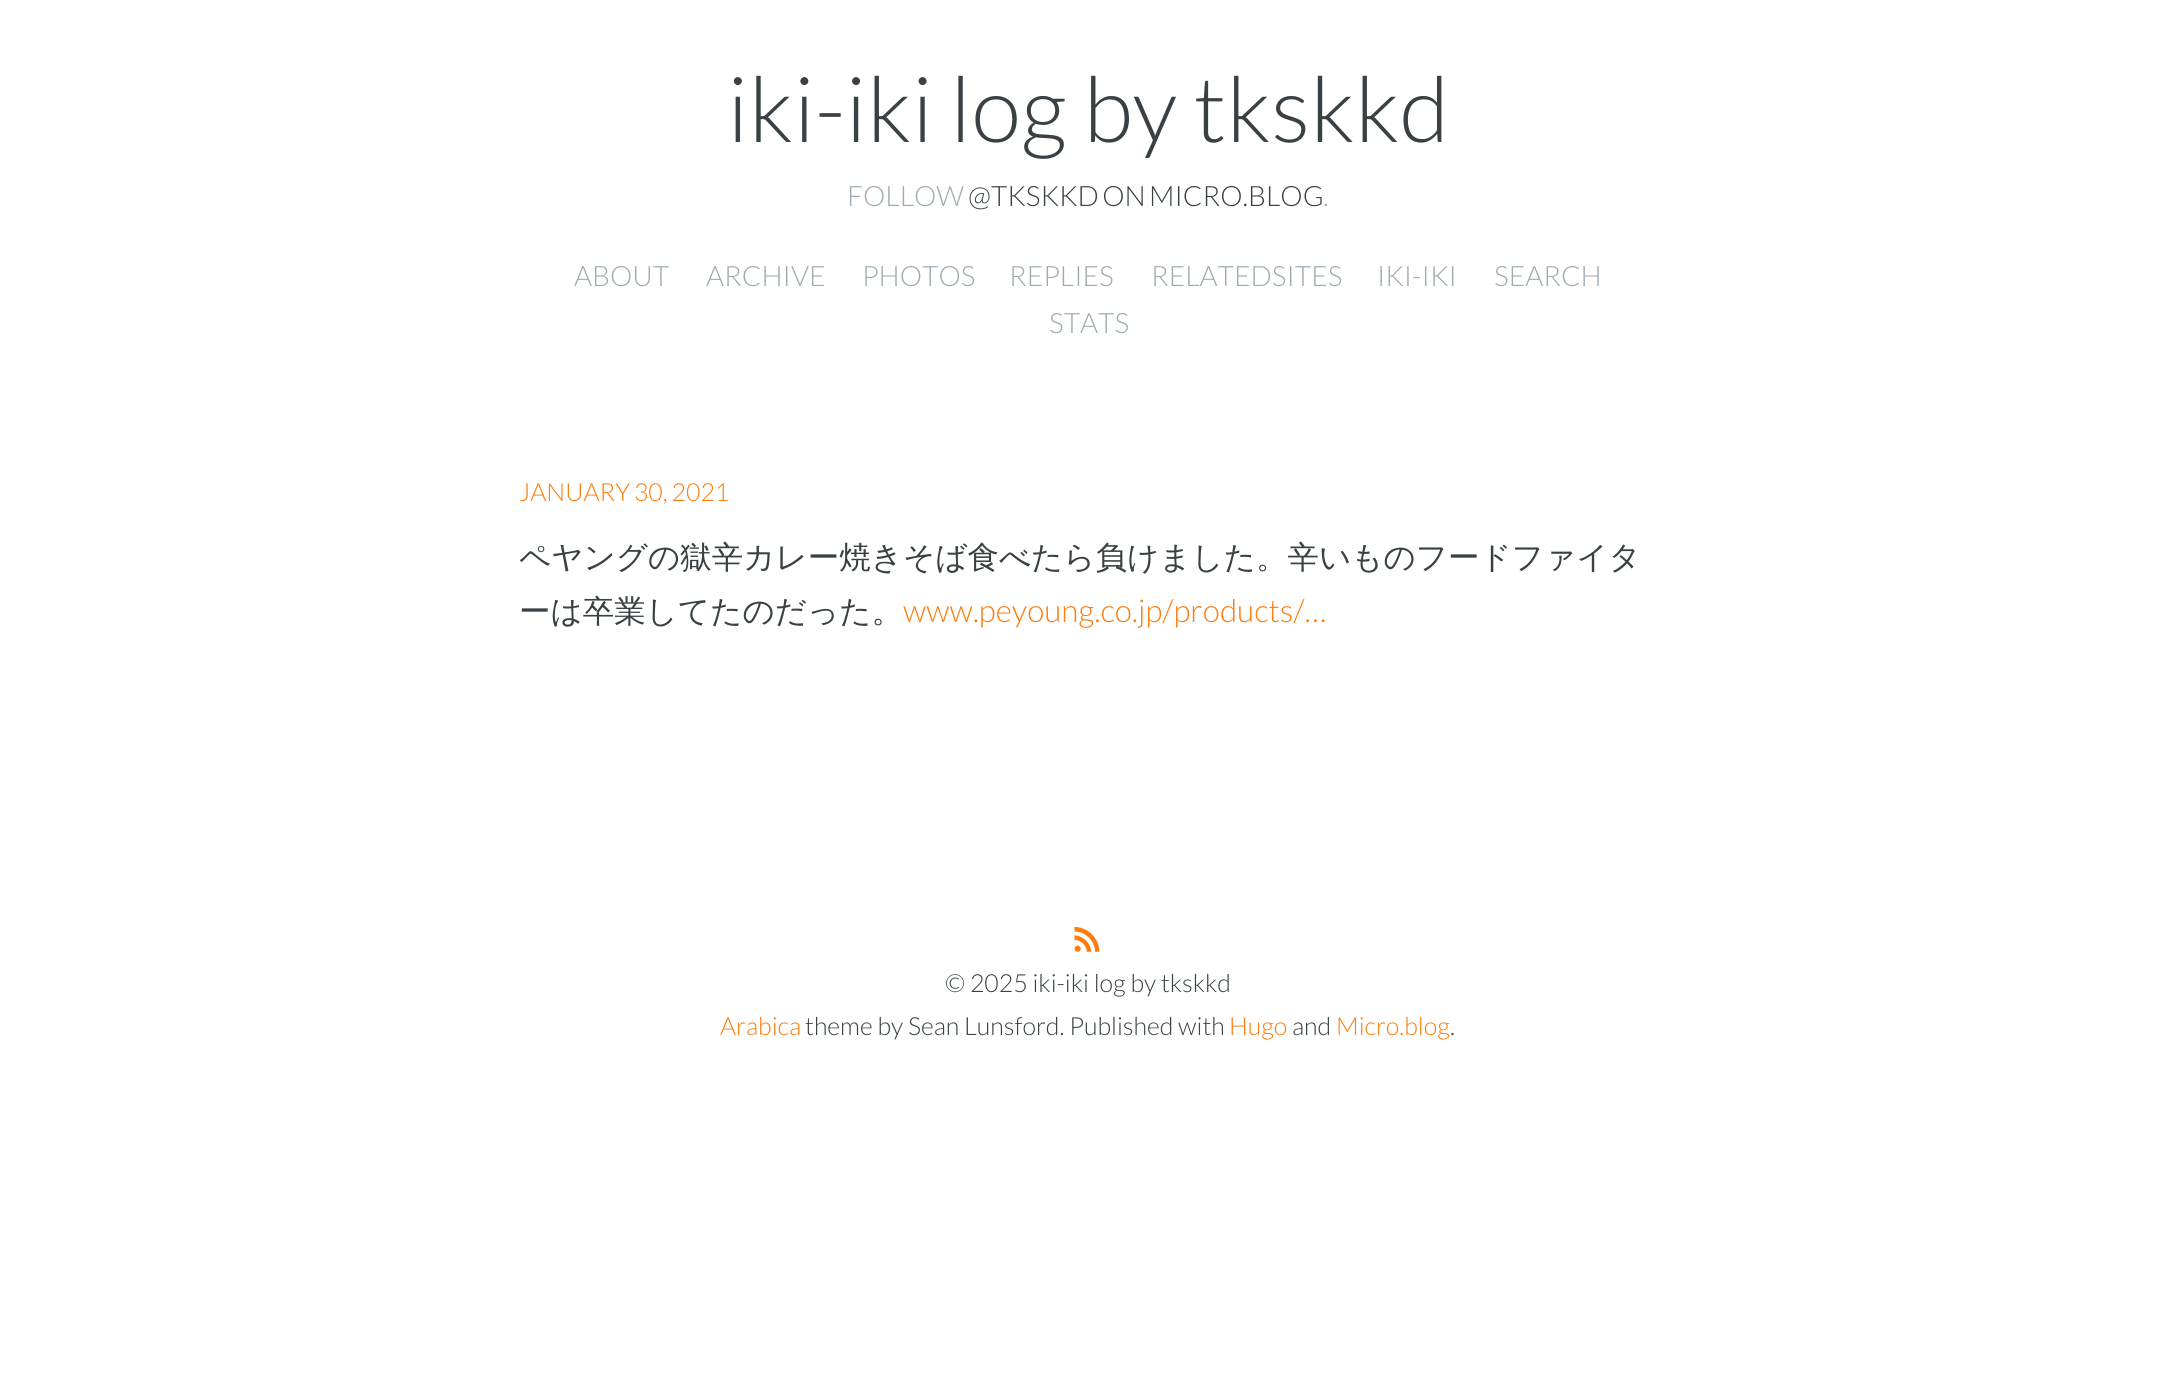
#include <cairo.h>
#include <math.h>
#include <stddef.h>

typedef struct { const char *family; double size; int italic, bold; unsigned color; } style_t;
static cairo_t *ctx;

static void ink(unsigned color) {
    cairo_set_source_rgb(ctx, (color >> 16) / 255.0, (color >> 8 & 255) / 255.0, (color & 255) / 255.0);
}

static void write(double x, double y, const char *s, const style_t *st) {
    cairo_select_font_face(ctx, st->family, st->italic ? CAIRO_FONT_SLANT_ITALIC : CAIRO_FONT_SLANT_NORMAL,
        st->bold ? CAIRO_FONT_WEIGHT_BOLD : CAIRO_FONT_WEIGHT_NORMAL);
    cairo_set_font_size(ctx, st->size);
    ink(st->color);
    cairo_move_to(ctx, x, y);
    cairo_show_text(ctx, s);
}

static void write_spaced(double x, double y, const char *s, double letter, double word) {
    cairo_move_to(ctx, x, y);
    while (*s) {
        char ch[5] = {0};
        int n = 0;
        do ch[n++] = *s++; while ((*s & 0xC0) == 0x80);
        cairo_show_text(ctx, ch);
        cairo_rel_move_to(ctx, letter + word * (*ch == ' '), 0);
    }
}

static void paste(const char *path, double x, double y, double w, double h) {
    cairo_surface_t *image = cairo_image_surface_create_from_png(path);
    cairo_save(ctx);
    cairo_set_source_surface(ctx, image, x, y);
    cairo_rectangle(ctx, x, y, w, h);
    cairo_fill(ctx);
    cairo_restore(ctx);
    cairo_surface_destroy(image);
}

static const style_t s1 = {"Lato Light", 28, 0, 0, 0x9eabb3};
static const style_t s2 = {"WenQuanYi Zen Hei Medium", 31.5, 0, 0, 0x3a4145};
static const style_t s3 = {"Lato Light", 31.5, 0, 0, 0xfc7e0f};
static const style_t s4 = {"Lato Light", 24.9, 0, 0, 0x3a4145};
static const style_t s5 = {"Lato Light", 24.9, 0, 0, 0xfc7e0f};

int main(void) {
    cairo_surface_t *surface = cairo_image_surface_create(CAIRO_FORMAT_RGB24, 2174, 1400);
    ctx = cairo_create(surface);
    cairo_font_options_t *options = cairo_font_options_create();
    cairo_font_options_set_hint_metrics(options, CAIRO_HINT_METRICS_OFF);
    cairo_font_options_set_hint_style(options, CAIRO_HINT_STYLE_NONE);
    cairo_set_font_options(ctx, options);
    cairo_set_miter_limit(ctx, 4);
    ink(0xffffff);
    cairo_paint(ctx);
    cairo_select_font_face(ctx, "Lato Light", CAIRO_FONT_SLANT_NORMAL, CAIRO_FONT_WEIGHT_NORMAL);
    cairo_set_font_size(ctx, 91);
    ink(0x3a4145);
    write_spaced(727, 142, "iki-iki log by tkskkd", 0, -1);
    write(847, 206, "FOLLOW", &s1);
    ink(0x3a4145);
    write_spaced(968, 206, "@TKSKKD ON MICRO.BLOG", 0, -2);
    write(1323, 206, ".", &s1);
    write(574, 286, "ABOUT", &s1);
    write(706, 286, "ARCHIVE", &s1);
    write(862, 286, "PHOTOS", &s1);
    write(1009, 286, "REPLIES", &s1);
    write(1151, 286, "RELATEDSITES", &s1);
    write(1377, 286, "IKI-IKI", &s1);
    write(1494, 286, "SEARCH", &s1);
    write(1049, 333, "STATS", &s1);
    cairo_set_font_size(ctx, 24.9);
    ink(0xfc7e0f);
    write_spaced(519, 501, "JANUARY 30, 2021", 0, -1);
    write(519, 568, "ペヤングの獄辛カレー焼きそば食べたら負けました。辛いものフードファイタ", &s2);
    write(519, 622, "ーは卒業してたのだった。", &s2);
    write(903, 622, "www.peyoung.co.jp/products/…", &s3);
    paste("pic1.png", 1074, 926, 26, 26);
    write(945, 992, "© 2025 iki-iki log by tkskkd", &s4);
    write(720, 1035, "Arabica", &s5);
    write(805, 1035, "theme by Sean Lunsford. Published with", &s4);
    write(1229, 1035, "Hugo", &s5);
    write(1292, 1035, "and", &s4);
    write(1336, 1035, "Micro.blog", &s5);
    write(1450, 1035, ".", &s4);
    cairo_surface_write_to_png(surface, "screenshot.png");
    cairo_font_options_destroy(options);
    cairo_destroy(ctx);
    cairo_surface_destroy(surface);
    return 0;
}
